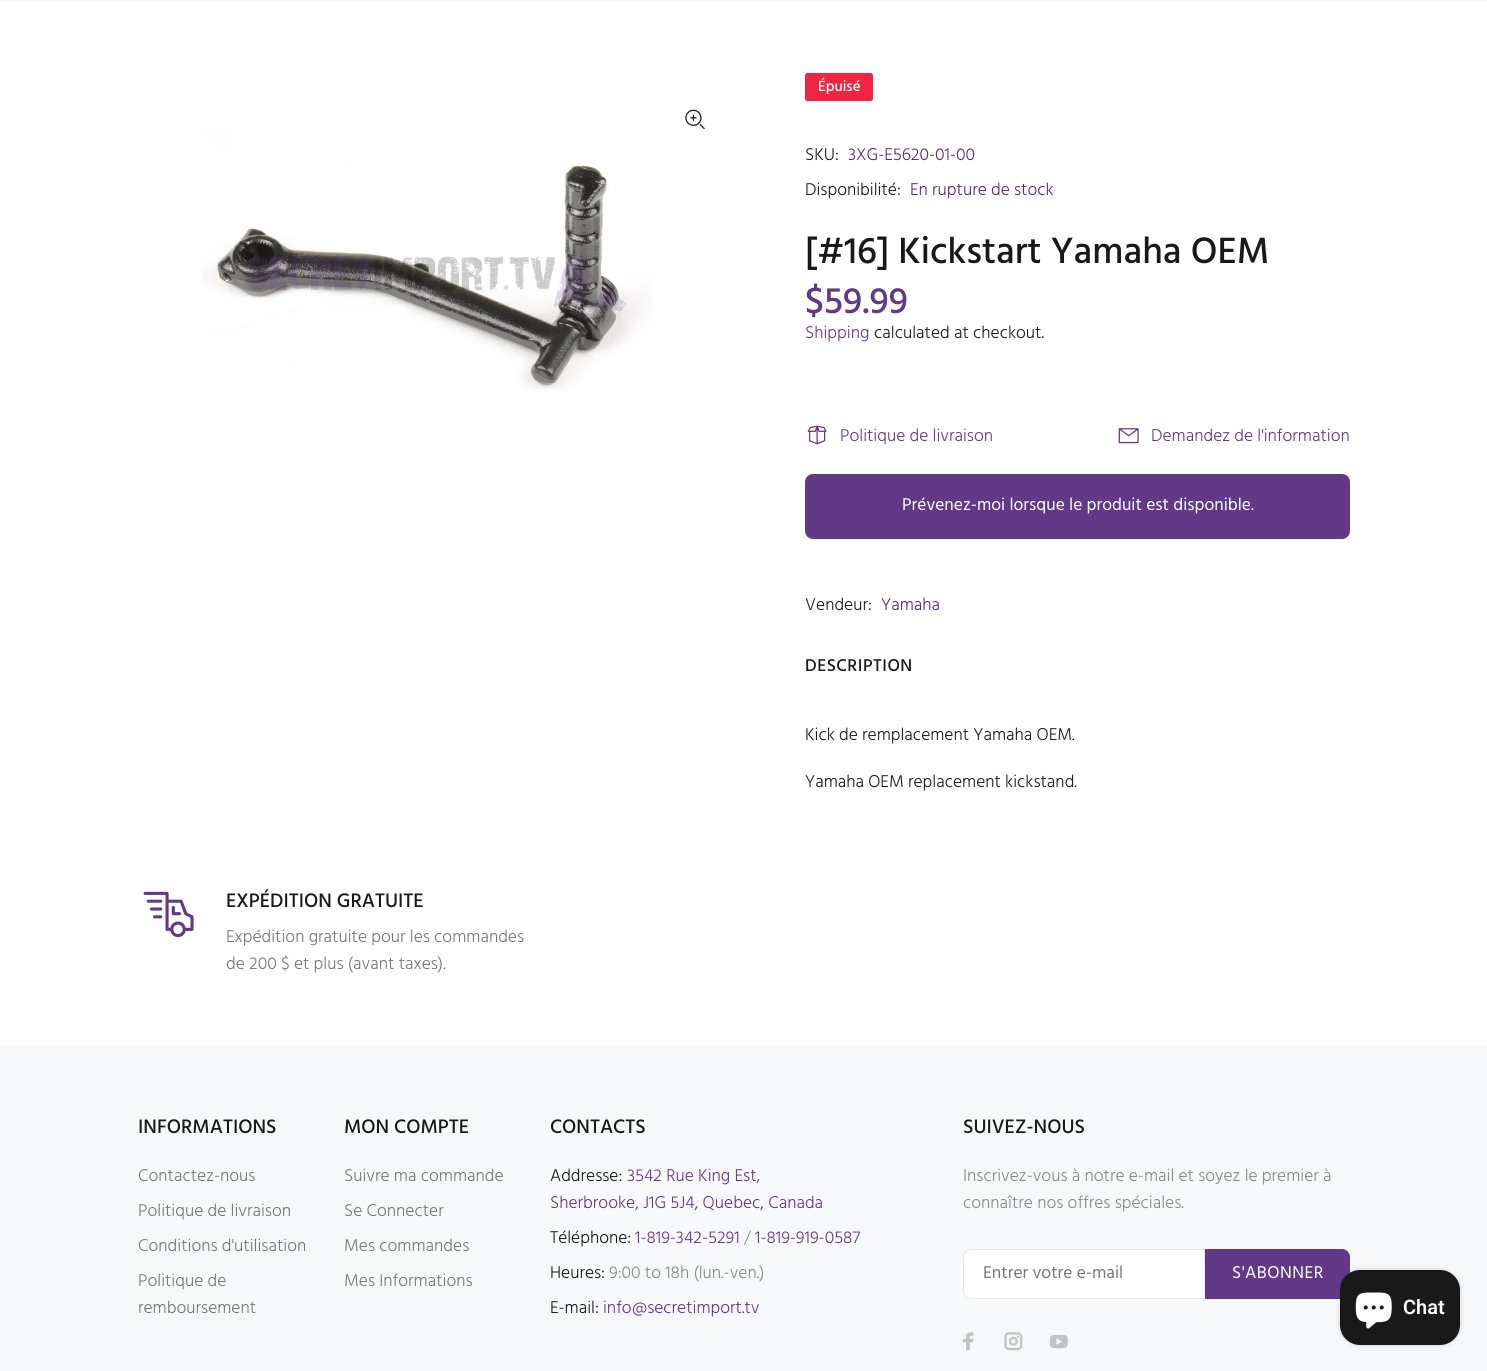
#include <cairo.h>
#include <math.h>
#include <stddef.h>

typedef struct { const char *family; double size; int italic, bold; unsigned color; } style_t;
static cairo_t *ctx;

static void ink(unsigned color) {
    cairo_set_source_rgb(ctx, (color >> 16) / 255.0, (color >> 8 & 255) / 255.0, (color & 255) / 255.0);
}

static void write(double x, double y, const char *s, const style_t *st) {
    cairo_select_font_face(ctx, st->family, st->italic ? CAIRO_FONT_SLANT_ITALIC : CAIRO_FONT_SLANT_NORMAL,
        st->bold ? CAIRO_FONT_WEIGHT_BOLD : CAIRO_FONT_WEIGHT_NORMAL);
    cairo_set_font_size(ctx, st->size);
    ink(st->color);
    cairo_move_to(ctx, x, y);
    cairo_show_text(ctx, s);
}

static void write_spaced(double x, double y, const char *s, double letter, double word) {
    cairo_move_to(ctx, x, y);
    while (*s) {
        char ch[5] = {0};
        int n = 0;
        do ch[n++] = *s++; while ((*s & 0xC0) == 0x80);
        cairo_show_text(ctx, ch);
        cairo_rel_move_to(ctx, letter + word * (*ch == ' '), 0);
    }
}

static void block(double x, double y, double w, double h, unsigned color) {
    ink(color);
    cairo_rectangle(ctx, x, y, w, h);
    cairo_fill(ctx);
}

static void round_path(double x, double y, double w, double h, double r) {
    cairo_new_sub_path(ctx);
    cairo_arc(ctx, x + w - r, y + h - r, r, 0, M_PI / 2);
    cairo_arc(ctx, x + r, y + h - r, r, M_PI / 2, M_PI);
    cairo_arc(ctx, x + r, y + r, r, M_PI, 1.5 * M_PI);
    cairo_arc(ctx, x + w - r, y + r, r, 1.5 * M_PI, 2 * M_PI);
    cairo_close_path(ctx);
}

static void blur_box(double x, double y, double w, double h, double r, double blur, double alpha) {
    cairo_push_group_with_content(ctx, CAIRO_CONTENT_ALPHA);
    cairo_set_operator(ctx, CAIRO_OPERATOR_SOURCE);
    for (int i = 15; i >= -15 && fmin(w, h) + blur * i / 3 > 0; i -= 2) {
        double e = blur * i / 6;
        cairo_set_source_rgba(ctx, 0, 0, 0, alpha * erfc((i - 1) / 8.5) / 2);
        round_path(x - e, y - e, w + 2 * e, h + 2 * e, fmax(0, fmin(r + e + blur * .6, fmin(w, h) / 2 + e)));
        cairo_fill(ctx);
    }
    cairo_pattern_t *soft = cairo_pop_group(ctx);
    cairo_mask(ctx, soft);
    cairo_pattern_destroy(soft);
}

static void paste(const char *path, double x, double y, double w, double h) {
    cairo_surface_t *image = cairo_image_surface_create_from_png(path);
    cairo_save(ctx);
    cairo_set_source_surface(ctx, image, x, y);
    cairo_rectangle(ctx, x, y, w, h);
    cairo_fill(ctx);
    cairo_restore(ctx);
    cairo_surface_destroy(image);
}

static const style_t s1 = {"Hind Medium", 15, 0, 0, 0xffffff};
static const style_t s2 = {"Hind Light", 17.5, 0, 0, 0x191919};
static const style_t s3 = {"Hind Light", 17.5, 0, 0, 0x502e6e};
static const style_t s4 = {"Hind Medium", 37.5, 0, 0, 0x191919};
static const style_t s5 = {"Hind Medium", 37.5, 0, 0, 0x623987};
static const style_t s6 = {"Hind Light", 17.5, 0, 0, 0x623987};
static const style_t s7 = {"Hind", 17.5, 0, 0, 0xffffff};
static const style_t s8 = {"Hind Medium", 20, 0, 0, 0x191919};
static const style_t s9 = {"Hind Light", 17.5, 0, 0, 0x777777};
static const style_t s10 = {"Hind Light", 17.5, 0, 0, 0x888888};
static const style_t s11 = {"Hind", 17.5, 0, 0, 0x777777};
static const style_t s12 = {"Roboto SemiBold", 20, 0, 0, 0xffffff};

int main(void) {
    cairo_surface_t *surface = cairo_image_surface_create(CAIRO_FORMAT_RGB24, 1487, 1371);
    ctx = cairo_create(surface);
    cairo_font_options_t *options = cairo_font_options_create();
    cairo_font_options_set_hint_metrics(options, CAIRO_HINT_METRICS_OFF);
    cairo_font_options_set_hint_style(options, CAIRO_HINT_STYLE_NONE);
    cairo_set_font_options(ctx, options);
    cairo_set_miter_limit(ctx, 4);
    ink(0xffffff);
    cairo_paint(ctx);
    block(0, 0, 1487, 1, 0xf7f8fa);
    paste("pic1.png", 685, 109, 20, 20);
    paste("pic2.png", 202, 125, 450, 265);
    ink(0xf02640);
    round_path(805, 73, 68, 28, 2.5);
    cairo_fill(ctx);
    write(818, 91, "Épuisé", &s1);
    write(805, 160, "SKU:", &s2);
    write(848, 160, "3XG-E5620-01-00", &s3);
    write(805, 195, "Disponibilité:", &s2);
    write(910, 195, "En rupture de stock", &s3);
    write(805, 263, "[#16] Kickstart Yamaha OEM", &s4);
    write(805, 313, "$59.99", &s5);
    write(805, 338, "Shipping", &s6);
    write(874, 338, "calculated at checkout.", &s2);
    paste("pic3.png", 807, 425, 20, 20);
    write(840, 441, "Politique de livraison", &s6);
    paste("pic4.png", 1118, 428, 21, 16);
    write(1151, 441, "Demandez de l'information", &s6);
    round_path(805, 474, 545, 65, 8);
    cairo_fill(ctx);
    write(902, 510, "Prévenez-moi lorsque le produit est disponible.", &s7);
    write(805, 610, "Vendeur:", &s2);
    write(881, 610, "Yamaha", &s3);
    cairo_select_font_face(ctx, "Hind Medium", CAIRO_FONT_SLANT_NORMAL, CAIRO_FONT_WEIGHT_NORMAL);
    ink(0x191919);
    write_spaced(805, 671, "DESCRIPTION", 0.5, 0);
    write(805, 740, "Kick de remplacement Yamaha OEM.", &s2);
    write(805, 787, "Yamaha OEM replacement kickstand.", &s2);
    paste("pic5.png", 143, 891, 51, 47);
    write(226, 907, "EXPÉDITION GRATUITE", &s8);
    write(226, 942, "Expédition gratuite pour les commandes", &s9);
    write(226, 969, "de 200 $ et plus (avant taxes).", &s9);
    block(0, 1045, 1487, 326, 0xf7f8fa);
    write(138, 1133, "INFORMATIONS", &s8);
    write(138, 1181, "Contactez-nous", &s9);
    write(138, 1216, "Politique de livraison", &s9);
    write(138, 1251, "Conditions d'utilisation", &s9);
    write(138, 1286, "Politique de", &s9);
    write(138, 1313, "remboursement", &s9);
    write(344, 1133, "MON COMPTE", &s8);
    write(344, 1181, "Suivre ma commande", &s9);
    write(344, 1216, "Se Connecter", &s9);
    write(344, 1251, "Mes commandes", &s9);
    write(344, 1286, "Mes Informations", &s9);
    write(550, 1133, "CONTACTS", &s8);
    write(550, 1181, "Addresse:", &s2);
    write(627, 1181, "3542 Rue King Est,", &s6);
    write(550, 1208, "Sherbrooke, J1G 5J4, Quebec, Canada", &s6);
    write(550, 1243, "Téléphone:", &s2);
    write(635, 1243, "1-819-342-5291", &s6);
    write(744, 1243, "/", &s10);
    write(755, 1243, "1-819-919-0587", &s6);
    write(550, 1278, "Heures:", &s2);
    write(609, 1278, "9:00 to 18h (lun.-ven.)", &s10);
    write(550, 1313, "E-mail:", &s2);
    write(603, 1313, "info@secretimport.tv", &s6);
    write(963, 1133, "SUIVEZ-NOUS", &s8);
    write(963, 1181, "Inscrivez-vous à notre e-mail et soyez le premier à", &s10);
    write(963, 1208, "connaître nos offres spéciales.", &s10);
    ink(0xffffff);
    cairo_new_path(ctx);
    cairo_move_to(ctx, 971, 1249.5);
    cairo_line_to(ctx, 1204.5, 1249.5);
    cairo_line_to(ctx, 1204.5, 1298.5);
    cairo_line_to(ctx, 971, 1298.5);
    cairo_curve_to(ctx, 967, 1298.5, 963.5, 1295, 963.5, 1291);
    cairo_line_to(ctx, 963.5, 1257);
    cairo_curve_to(ctx, 963.5, 1253, 967, 1249.5, 971, 1249.5);
    cairo_close_path(ctx);
    cairo_fill_preserve(ctx);
    ink(0xe9e7e7);
    cairo_set_line_width(ctx, 1);
    cairo_stroke(ctx);
    write(983, 1278, "Entrer votre e-mail", &s11);
    ink(0x623987);
    cairo_new_path(ctx);
    cairo_move_to(ctx, 1205.5, 1249.5);
    cairo_line_to(ctx, 1342, 1249.5);
    cairo_curve_to(ctx, 1346, 1249.5, 1349.5, 1253, 1349.5, 1257);
    cairo_line_to(ctx, 1349.5, 1291);
    cairo_curve_to(ctx, 1349.5, 1295, 1346, 1298.5, 1342, 1298.5);
    cairo_line_to(ctx, 1205.5, 1298.5);
    cairo_close_path(ctx);
    cairo_fill_preserve(ctx);
    cairo_stroke(ctx);
    ink(0xffffff);
    write_spaced(1232, 1278, "S'ABONNER", 0.5, 0);
    paste("pic6.png", 962, 1332, 12, 19);
    paste("pic7.png", 1004, 1332, 19, 19);
    paste("pic8.png", 1049, 1334, 19, 15);
    ink(0x000000);
    blur_box(1340, 1270, 120, 75, 20, 3, 0.15);
    ink(0x191919);
    round_path(1340, 1270, 120, 75, 20);
    cairo_fill(ctx);
    paste("pic9.png", 1355, 1292, 37, 37);
    write(1403, 1314, "Chat", &s12);
    cairo_surface_write_to_png(surface, "screenshot.png");
    cairo_font_options_destroy(options);
    cairo_destroy(ctx);
    cairo_surface_destroy(surface);
    return 0;
}
